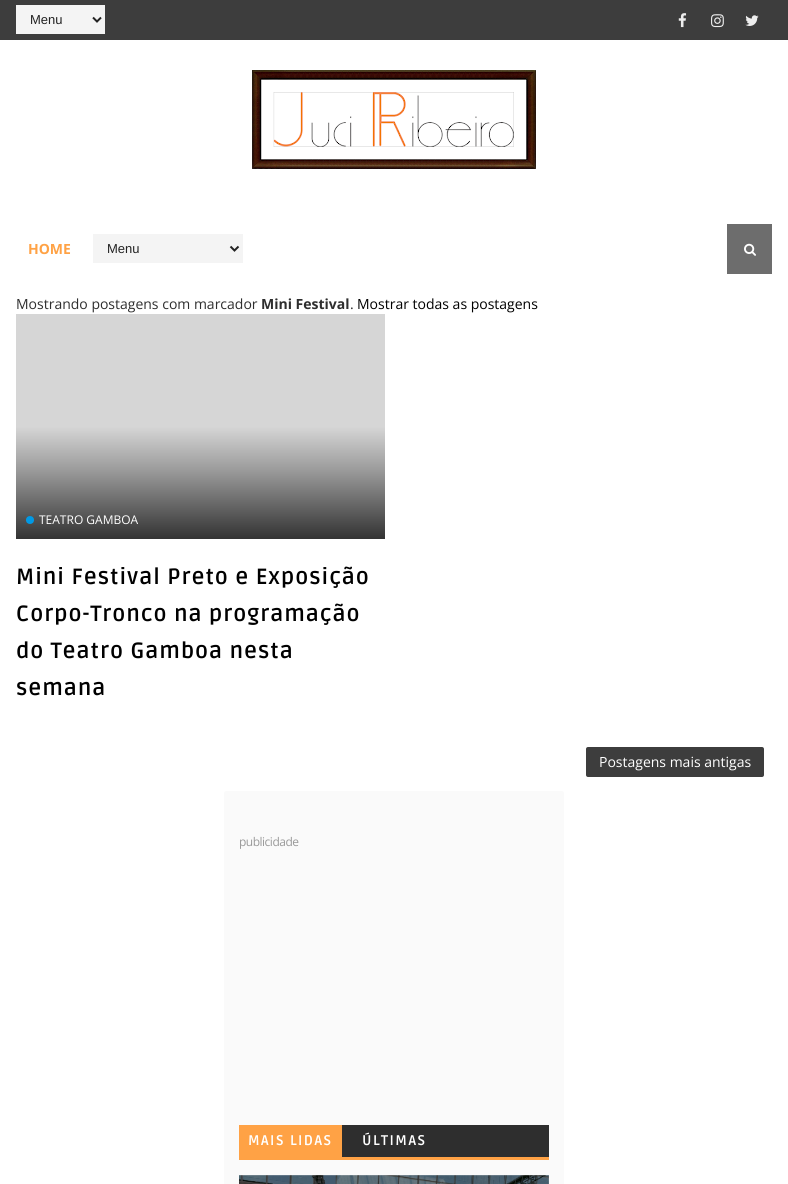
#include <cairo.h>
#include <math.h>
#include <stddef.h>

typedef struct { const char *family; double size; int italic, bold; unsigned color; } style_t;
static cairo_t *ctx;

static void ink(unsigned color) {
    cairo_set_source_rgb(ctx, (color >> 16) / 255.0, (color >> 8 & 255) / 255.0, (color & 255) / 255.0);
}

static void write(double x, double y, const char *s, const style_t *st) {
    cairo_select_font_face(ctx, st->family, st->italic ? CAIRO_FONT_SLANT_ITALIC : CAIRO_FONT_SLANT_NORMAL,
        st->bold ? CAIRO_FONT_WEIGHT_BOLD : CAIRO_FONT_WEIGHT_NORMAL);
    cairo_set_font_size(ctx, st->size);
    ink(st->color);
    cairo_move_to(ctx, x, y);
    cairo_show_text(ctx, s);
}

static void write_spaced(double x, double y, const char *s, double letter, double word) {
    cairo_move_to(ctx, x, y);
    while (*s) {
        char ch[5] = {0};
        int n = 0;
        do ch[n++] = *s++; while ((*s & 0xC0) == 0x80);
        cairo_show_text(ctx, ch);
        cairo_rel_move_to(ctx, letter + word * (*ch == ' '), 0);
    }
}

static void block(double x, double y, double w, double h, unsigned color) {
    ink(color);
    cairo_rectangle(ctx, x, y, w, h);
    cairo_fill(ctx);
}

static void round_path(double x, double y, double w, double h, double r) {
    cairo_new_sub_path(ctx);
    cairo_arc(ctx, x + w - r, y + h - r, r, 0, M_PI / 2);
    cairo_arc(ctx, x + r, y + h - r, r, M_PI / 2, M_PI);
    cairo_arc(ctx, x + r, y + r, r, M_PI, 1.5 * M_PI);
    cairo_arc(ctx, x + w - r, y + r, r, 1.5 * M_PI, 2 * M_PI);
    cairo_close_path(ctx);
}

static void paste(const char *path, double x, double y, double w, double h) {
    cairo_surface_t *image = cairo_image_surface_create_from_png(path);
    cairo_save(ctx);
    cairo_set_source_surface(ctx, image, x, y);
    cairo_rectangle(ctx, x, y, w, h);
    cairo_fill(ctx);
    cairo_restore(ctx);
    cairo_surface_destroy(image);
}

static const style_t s1 = {"Liberation Sans", 13, 0, 0, 0x222222};
static const style_t s2 = {"Open Sans", 14, 0, 1, 0xffa245};
static const style_t s3 = {"Open Sans", 14, 0, 0, 0x2e2e2e};
static const style_t s4 = {"Open Sans", 14, 0, 1, 0x2e2e2e};
static const style_t s5 = {"Open Sans", 14, 0, 0, 0x000000};
static const style_t s6 = {"Open Sans", 12, 0, 0, 0xffffff};
static const style_t s7 = {"Open Sans", 14, 0, 0, 0xffffff};

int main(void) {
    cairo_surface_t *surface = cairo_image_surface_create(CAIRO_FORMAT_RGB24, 788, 1184);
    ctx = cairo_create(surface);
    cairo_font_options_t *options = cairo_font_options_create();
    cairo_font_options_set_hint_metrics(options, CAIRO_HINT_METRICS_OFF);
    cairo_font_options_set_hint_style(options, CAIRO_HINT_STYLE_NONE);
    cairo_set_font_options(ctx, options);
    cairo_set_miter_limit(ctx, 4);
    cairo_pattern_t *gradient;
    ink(0xffffff);
    cairo_paint(ctx);
    block(0, 0, 788, 40, 0x3d3d3d);
    block(16, 5, 89, 29, 0xf4f4f4);
    cairo_new_path(ctx);
    cairo_move_to(ctx, 93, 17.5);
    cairo_line_to(ctx, 97, 21.5);
    cairo_line_to(ctx, 101, 17.5);
    ink(0x222222);
    cairo_stroke(ctx);
    write(30, 24, "Menu", &s1);
    paste("pic1.png", 678, 13, 9, 15);
    paste("pic2.png", 711, 14, 13, 14);
    paste("pic3.png", 745, 15, 14, 11);
    paste("pic4.png", 252, 70, 284, 99);
    write(28, 254, "HOME", &s2);
    block(93, 234, 150, 29, 0xf4f4f4);
    cairo_new_path(ctx);
    cairo_move_to(ctx, 230.5, 246.5);
    cairo_line_to(ctx, 234.5, 250.5);
    cairo_line_to(ctx, 238.5, 246.5);
    ink(0x222222);
    cairo_stroke(ctx);
    write(107, 253, "Menu", &s1);
    block(727, 224, 45, 50, 0x6d6d6d);
    paste("pic5.png", 744, 243, 12, 13);
    write(16, 309, "Mostrando postagens com marcador", &s3);
    write(261, 309, "Mini Festival", &s4);
    write(350, 309, ".", &s3);
    write(357, 309, "Mostrar todas as postagens", &s5);
    gradient = cairo_pattern_create_linear(201, 314, 201, 539);
    cairo_pattern_add_color_stop_rgba(gradient, 0.5, 0.839, 0.839, 0.839, 1);
    cairo_pattern_add_color_stop_rgba(gradient, 0.7, 0.6, 0.6, 0.6, 1);
    cairo_pattern_add_color_stop_rgba(gradient, 1, 0.2, 0.2, 0.2, 1);
    cairo_set_source(ctx, gradient);
    cairo_pattern_destroy(gradient);
    cairo_rectangle(ctx, 16, 314, 369, 225);
    cairo_fill(ctx);
    ink(0x0099e5);
    cairo_arc(ctx, 30, 520, 4, 0, 2 * M_PI);
    cairo_fill(ctx);
    write(39, 524, "TEATRO GAMBOA", &s6);
    cairo_select_font_face(ctx, "Ruda", CAIRO_FONT_SLANT_NORMAL, CAIRO_FONT_WEIGHT_BOLD);
    cairo_set_font_size(ctx, 22);
    ink(0x000000);
    write_spaced(16, 584, "Mini Festival Preto e Exposição", 1, 0);
    write_spaced(16, 621, "Corpo-Tronco na programação", 1, 0);
    write_spaced(16, 658, "do Teatro Gamboa nesta", 1, 0);
    write_spaced(16, 695, "semana", 1, 0);
    ink(0x3d3d3d);
    round_path(586, 747, 178, 30, 2);
    cairo_fill(ctx);
    write(599, 767, "Postagens mais antigas", &s7);
    ink(0xfafafa);
    round_path(224, 791, 340, 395, 2);
    cairo_fill(ctx);
    cairo_set_font_size(ctx, 12);
    ink(0x999999);
    write_spaced(239, 846, "publicidade", -0.5, 0);
    block(239, 1157, 310, 3, 0xffa245);
    block(239, 1125, 103, 32, 0xffa245);
    cairo_select_font_face(ctx, "Ruda", CAIRO_FONT_SLANT_NORMAL, CAIRO_FONT_WEIGHT_BOLD);
    cairo_set_font_size(ctx, 14);
    ink(0xffffff);
    write_spaced(248, 1145, "MAIS LIDAS", 1.5, 0);
    block(342, 1125, 207, 32, 0x2e2e2e);
    ink(0xffffff);
    write_spaced(362, 1145, "ÚLTIMAS", 1.5, 0);
    paste("pic6.png", 239, 1175, 310, 9);
    cairo_surface_write_to_png(surface, "screenshot.png");
    cairo_font_options_destroy(options);
    cairo_destroy(ctx);
    cairo_surface_destroy(surface);
    return 0;
}
